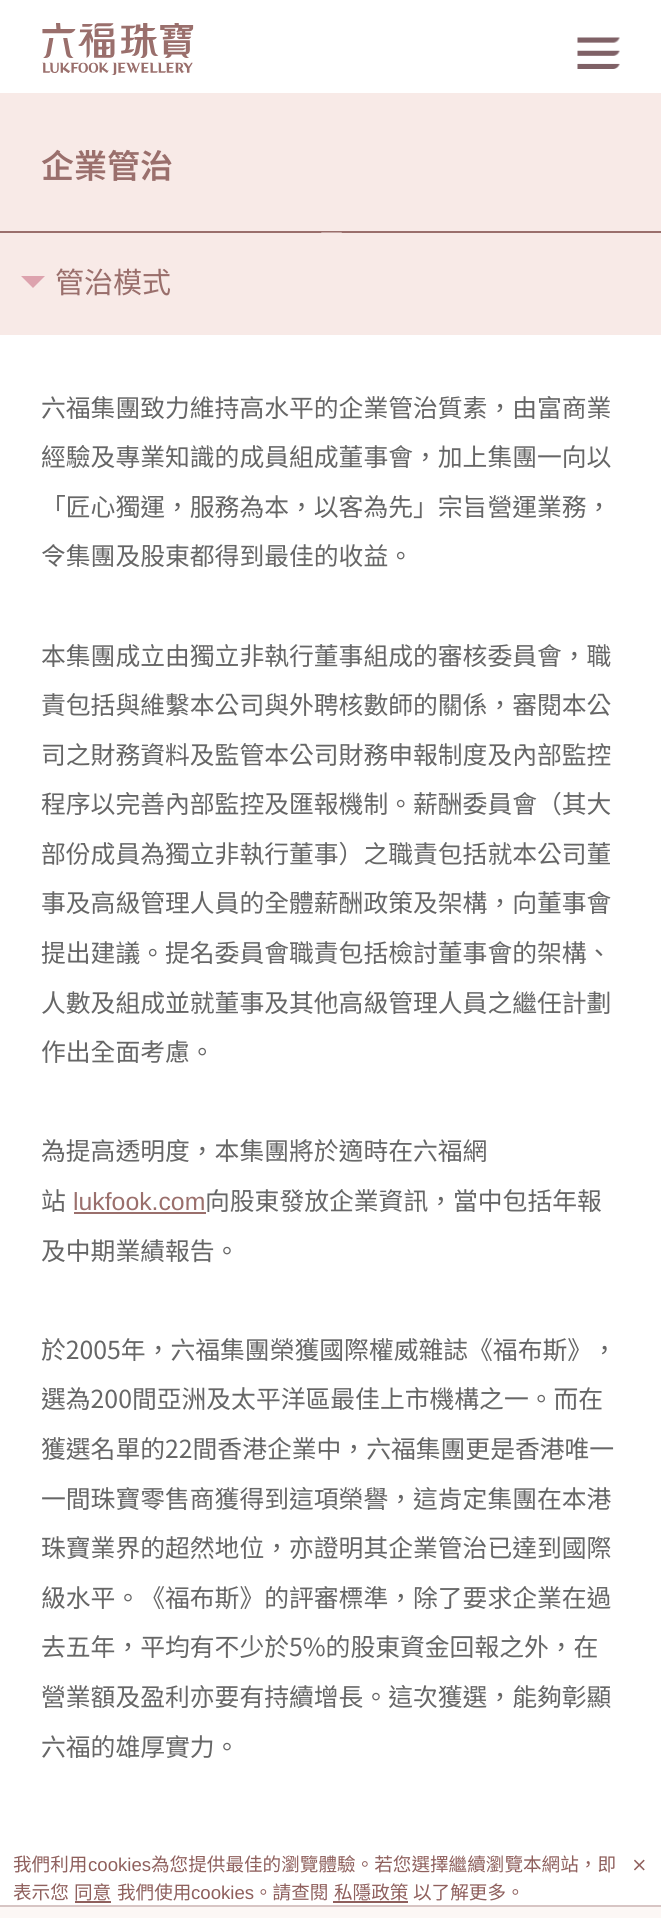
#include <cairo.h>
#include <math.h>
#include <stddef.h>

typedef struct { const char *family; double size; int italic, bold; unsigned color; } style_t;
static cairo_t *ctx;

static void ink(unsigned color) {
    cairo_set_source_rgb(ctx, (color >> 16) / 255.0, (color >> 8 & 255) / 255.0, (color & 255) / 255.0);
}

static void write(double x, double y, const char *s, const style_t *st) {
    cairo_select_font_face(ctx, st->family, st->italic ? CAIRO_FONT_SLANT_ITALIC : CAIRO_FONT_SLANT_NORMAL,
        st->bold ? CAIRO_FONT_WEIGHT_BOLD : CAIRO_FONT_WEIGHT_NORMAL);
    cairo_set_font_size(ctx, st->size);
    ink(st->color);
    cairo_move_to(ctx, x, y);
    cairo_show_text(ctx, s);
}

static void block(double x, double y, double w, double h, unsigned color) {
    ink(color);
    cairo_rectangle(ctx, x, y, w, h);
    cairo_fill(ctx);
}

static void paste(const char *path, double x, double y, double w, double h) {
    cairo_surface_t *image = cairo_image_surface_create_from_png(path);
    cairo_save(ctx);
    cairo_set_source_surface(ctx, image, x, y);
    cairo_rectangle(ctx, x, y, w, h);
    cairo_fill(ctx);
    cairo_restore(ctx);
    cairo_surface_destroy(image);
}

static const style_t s1 = {"Noto Sans TC SemiBold", 33, 0, 0, 0x9a6f6c};
static const style_t s2 = {"Noto Sans TC", 29, 0, 0, 0x9a6f6c};
static const style_t s3 = {"Noto Sans TC", 24.8, 0, 0, 0x666666};
static const style_t s4 = {"Liberation Sans", 24.8, 0, 0, 0x9a6f6c};
static const style_t s5 = {"Noto Sans TC", 18.6, 0, 0, 0x8f605d};
static const style_t s6 = {"Liberation Sans", 18.6, 0, 0, 0x8f605d};

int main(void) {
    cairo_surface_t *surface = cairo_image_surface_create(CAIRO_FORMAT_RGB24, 661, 1918);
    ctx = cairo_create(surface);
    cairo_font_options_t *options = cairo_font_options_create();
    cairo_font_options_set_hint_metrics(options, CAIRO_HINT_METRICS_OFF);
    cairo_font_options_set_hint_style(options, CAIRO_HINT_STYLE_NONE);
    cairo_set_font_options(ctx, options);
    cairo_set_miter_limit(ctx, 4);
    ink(0xffffff);
    cairo_paint(ctx);
    paste("pic1.png", 42, 23, 152, 52);
    paste("pic2.png", 577, 37, 43, 32);
    block(0, 93, 661, 138, 0xf8eae7);
    write(41, 178, "企業管治", &s1);
    block(0, 233, 661, 102, 0xf8eae7);
    block(0, 231, 661, 2, 0x9a6f6c);
    ink(0xf8eae7);
    cairo_new_path(ctx);
    cairo_move_to(ctx, 321, 232.5);
    cairo_line_to(ctx, 342, 232.5);
    cairo_line_to(ctx, 331.5, 243);
    cairo_close_path(ctx);
    cairo_fill(ctx);
    ink(0xdda3ae);
    cairo_new_path(ctx);
    cairo_move_to(ctx, 21, 276);
    cairo_line_to(ctx, 45, 276);
    cairo_line_to(ctx, 33, 288);
    cairo_close_path(ctx);
    cairo_fill(ctx);
    write(55, 293, "管治模式", &s2);
    write(41, 417, "六福集團致力維持高水平的企業管治質素，由富商業", &s3);
    write(41, 466, "經驗及專業知識的成員組成董事會，加上集團一向以", &s3);
    write(41, 516, "「匠心獨運，服務為本，以客為先」宗旨營運業務，", &s3);
    write(41, 565, "令集團及股東都得到最佳的收益。", &s3);
    write(41, 665, "本集團成立由獨立非執行董事組成的審核委員會，職", &s3);
    write(41, 714, "責包括與維繫本公司與外聘核數師的關係，審閱本公", &s3);
    write(41, 764, "司之財務資料及監管本公司財務申報制度及內部監控", &s3);
    write(41, 813, "程序以完善內部監控及匯報機制。薪酬委員會（其大", &s3);
    write(41, 863, "部份成員為獨立非執行董事）之職責包括就本公司董", &s3);
    write(41, 912, "事及高級管理人員的全體薪酬政策及架構，向董事會", &s3);
    write(41, 962, "提出建議。提名委員會職責包括檢討董事會的架構、", &s3);
    write(41, 1012, "人數及組成並就董事及其他高級管理人員之繼任計劃", &s3);
    write(41, 1061, "作出全面考慮。", &s3);
    write(41, 1160, "為提高透明度，本集團將於適時在六福網", &s3);
    write(41, 1210, "站", &s3);
    write(73, 1210, "lukfook.com", &s4);
    block(74, 1212, 132, 2, 0x9a6f6c);
    write(205, 1210, "向股東發放企業資訊，當中包括年報", &s3);
    write(41, 1260, "及中期業績報告。", &s3);
    write(41, 1359, "於2005年，六福集團榮獲國際權威雜誌《福布斯》，", &s3);
    write(41, 1408, "選為200間亞洲及太平洋區最佳上市機構之一。而在", &s3);
    write(41, 1458, "獲選名單的22間香港企業中，六福集團更是香港唯一", &s3);
    write(41, 1508, "一間珠寶零售商獲得到這項榮譽，這肯定集團在本港", &s3);
    write(41, 1557, "珠寶業界的超然地位，亦證明其企業管治已達到國際", &s3);
    write(41, 1607, "級水平。《福布斯》的評審標準，除了要求企業在過", &s3);
    write(41, 1656, "去五年，平均有不少於5%的股東資金回報之外，在", &s3);
    write(41, 1706, "營業額及盈利亦要有持續增長。這次獲選，能夠彰顯", &s3);
    write(41, 1756, "六福的雄厚實力。", &s3);
    block(0, 1907, 661, 11, 0xfcf7f5);
    block(0, 1905, 661, 2, 0xd7c5c4);
    write(13, 1871, "我們利用", &s5);
    write(88, 1871, "cookies", &s6);
    write(151, 1871, "為您提供最佳的瀏覽體驗。若您選擇繼續瀏覽本網站，即", &s5);
    paste("pic3.png", 634, 1859, 11, 12);
    write(13, 1899, "表示您", &s5);
    write(74, 1899, "同意", &s5);
    block(75, 1901, 36, 2, 0x8f605d);
    write(117, 1899, "我們使用", &s5);
    write(191, 1899, "cookies", &s6);
    write(254, 1899, "。請查閱", &s5);
    write(334, 1899, "私隱政策", &s5);
    block(333, 1901, 75, 2, 0x8f605d);
    write(413, 1899, "以了解更多。", &s5);
    cairo_surface_write_to_png(surface, "screenshot.png");
    cairo_font_options_destroy(options);
    cairo_destroy(ctx);
    cairo_surface_destroy(surface);
    return 0;
}
